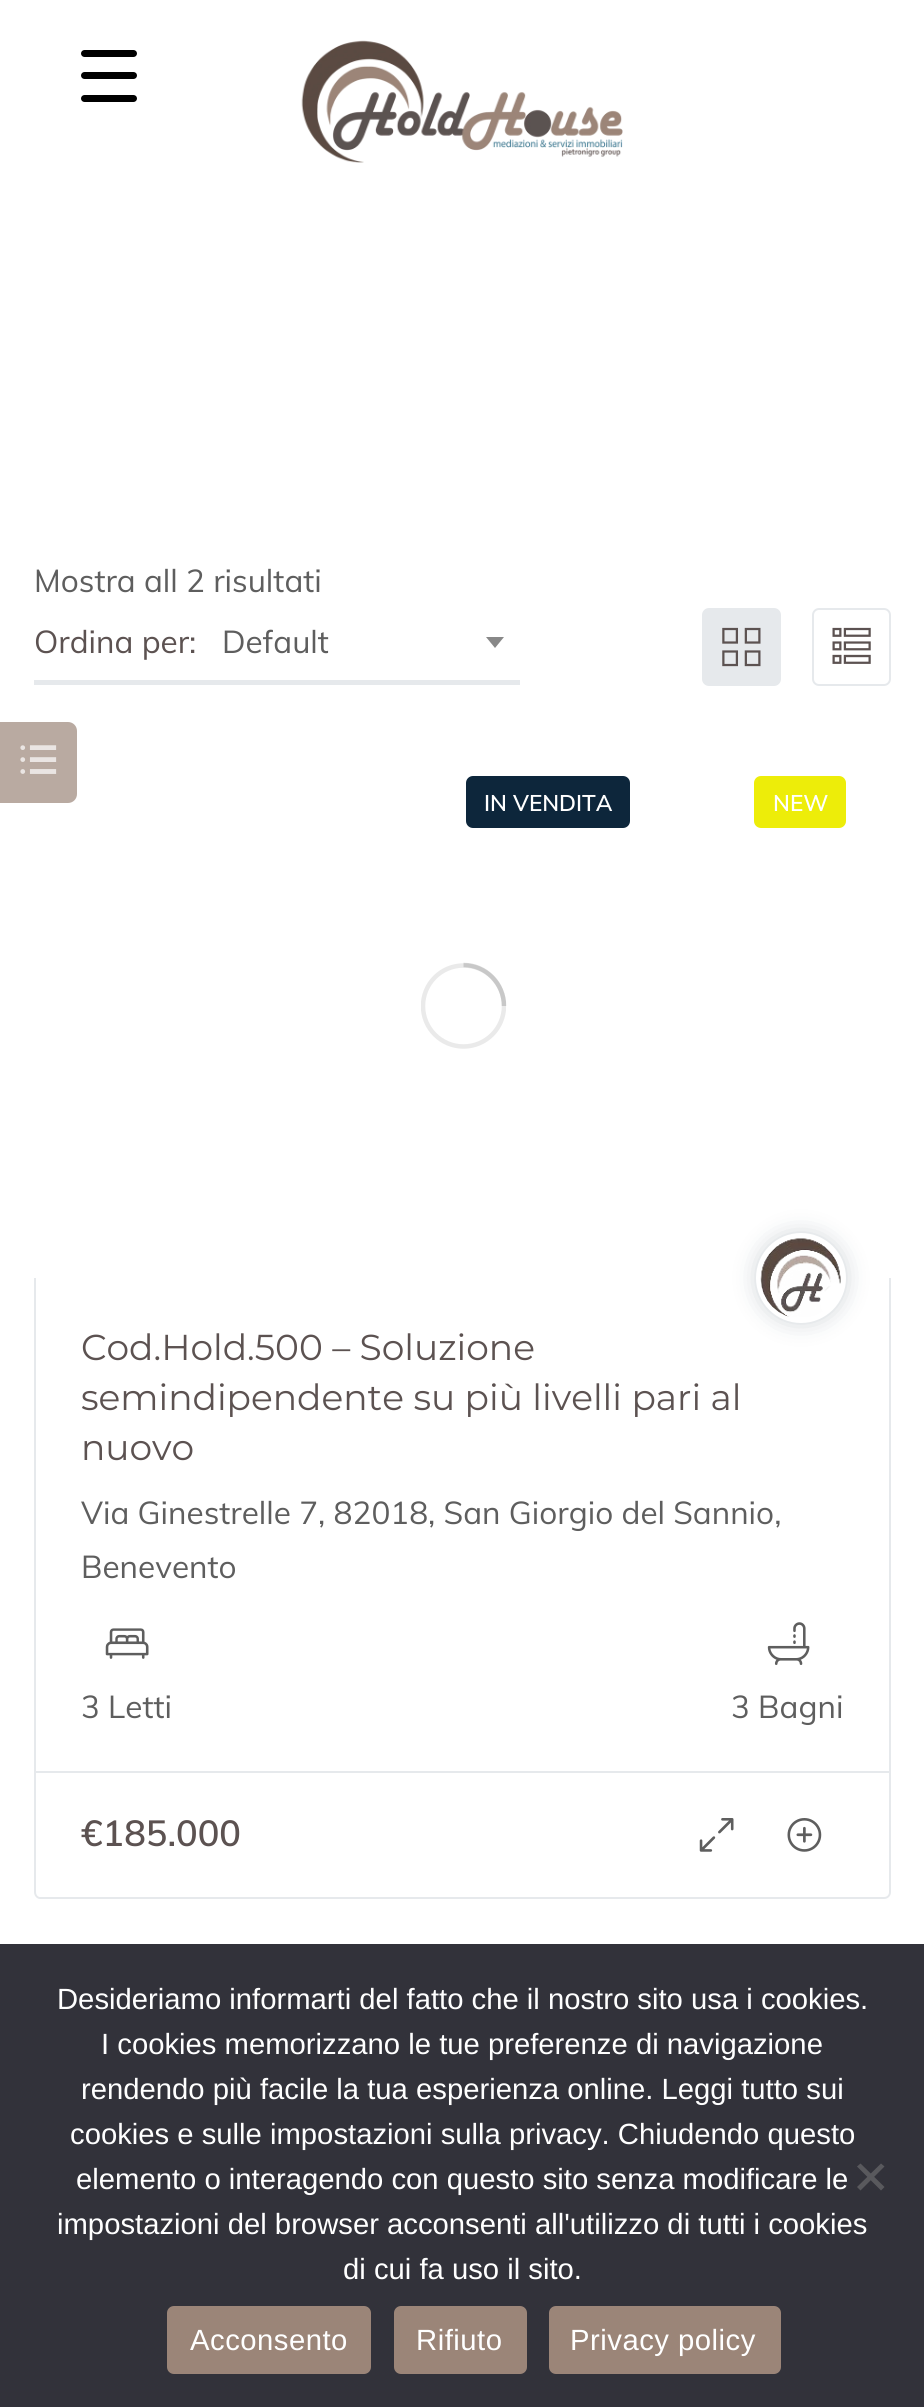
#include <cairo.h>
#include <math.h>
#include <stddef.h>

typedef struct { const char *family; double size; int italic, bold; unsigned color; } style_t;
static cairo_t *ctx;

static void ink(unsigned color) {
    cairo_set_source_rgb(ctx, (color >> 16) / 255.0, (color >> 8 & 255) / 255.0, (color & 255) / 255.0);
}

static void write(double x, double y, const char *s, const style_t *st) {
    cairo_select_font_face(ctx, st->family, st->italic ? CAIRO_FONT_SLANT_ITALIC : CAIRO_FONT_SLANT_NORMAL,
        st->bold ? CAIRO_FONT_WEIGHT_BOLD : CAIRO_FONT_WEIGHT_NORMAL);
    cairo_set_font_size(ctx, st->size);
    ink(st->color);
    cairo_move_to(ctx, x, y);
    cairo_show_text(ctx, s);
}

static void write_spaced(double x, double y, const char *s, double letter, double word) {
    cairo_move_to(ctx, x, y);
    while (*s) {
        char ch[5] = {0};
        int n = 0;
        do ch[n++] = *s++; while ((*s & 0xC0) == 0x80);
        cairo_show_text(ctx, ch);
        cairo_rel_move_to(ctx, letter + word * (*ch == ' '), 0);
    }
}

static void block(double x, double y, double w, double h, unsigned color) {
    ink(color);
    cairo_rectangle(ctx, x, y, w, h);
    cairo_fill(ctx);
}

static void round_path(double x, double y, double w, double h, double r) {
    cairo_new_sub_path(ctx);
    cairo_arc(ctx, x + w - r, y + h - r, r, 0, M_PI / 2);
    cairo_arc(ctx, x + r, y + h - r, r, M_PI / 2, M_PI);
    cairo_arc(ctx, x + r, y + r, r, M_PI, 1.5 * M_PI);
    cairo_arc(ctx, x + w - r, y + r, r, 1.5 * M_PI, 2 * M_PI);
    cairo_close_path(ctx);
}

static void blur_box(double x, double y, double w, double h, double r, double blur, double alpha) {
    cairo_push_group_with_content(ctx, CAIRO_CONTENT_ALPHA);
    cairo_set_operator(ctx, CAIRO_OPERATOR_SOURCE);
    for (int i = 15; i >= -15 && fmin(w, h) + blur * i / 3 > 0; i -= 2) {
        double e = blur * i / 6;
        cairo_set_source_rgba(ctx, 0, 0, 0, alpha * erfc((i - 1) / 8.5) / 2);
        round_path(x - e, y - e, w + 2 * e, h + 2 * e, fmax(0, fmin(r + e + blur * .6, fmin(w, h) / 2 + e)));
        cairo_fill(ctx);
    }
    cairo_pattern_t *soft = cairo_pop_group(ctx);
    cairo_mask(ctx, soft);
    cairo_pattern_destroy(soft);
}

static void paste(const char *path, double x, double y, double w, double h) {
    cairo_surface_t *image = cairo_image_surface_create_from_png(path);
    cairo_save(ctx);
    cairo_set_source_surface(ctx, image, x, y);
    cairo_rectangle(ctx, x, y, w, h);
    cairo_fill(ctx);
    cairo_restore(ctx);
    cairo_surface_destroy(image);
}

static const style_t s1 = {"Muli", 31.5, 0, 0, 0x5e5e5e};
static const style_t s2 = {"Muli", 31.5, 0, 0, 0x5c5251};
static const style_t s3 = {"Muli SemiBold", 22.5, 0, 0, 0xffffff};
static const style_t s4 = {"Montserrat", 36, 0, 0, 0x5c5251};
static const style_t s5 = {"Muli SemiBold", 36, 0, 0, 0x5c5251};
static const style_t s6 = {"Liberation Sans", 29.25, 0, 0, 0xffffff};

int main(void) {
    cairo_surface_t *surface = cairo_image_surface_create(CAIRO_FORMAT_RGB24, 924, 2407);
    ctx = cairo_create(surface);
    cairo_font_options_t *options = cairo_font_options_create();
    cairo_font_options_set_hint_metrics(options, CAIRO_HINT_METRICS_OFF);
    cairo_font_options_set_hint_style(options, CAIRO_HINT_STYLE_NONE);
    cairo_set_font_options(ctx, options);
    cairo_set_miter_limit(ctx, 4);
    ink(0xffffff);
    cairo_paint(ctx);
    ink(0x000000);
    round_path(81, 72, 56, 7, 3.5);
    cairo_fill(ctx);
    round_path(81, 50, 56, 7, 3.5);
    cairo_fill(ctx);
    round_path(81, 95, 56, 7, 3.5);
    cairo_fill(ctx);
    paste("pic1.png", 301, 40, 322, 123);
    write(34, 592, "Mostra all 2 risultati", &s1);
    block(34, 680, 486, 5, 0xe6e9ec);
    write(34, 653, "Ordina per:", &s2);
    write(222, 653, "Default", &s1);
    ink(0x888888);
    cairo_new_path(ctx);
    cairo_move_to(ctx, 486, 637);
    cairo_line_to(ctx, 504, 637);
    cairo_line_to(ctx, 495, 648);
    cairo_close_path(ctx);
    cairo_fill(ctx);
    ink(0xe6e9ec);
    round_path(703, 609, 77, 76, 6);
    cairo_fill_preserve(ctx);
    cairo_stroke(ctx);
    paste("pic2.png", 722, 627, 39, 40);
    round_path(813, 609, 77, 76, 6);
    cairo_stroke(ctx);
    paste("pic3.png", 832, 627, 39, 37);
    ink(0x0d263b);
    round_path(466, 776, 164, 52, 7);
    cairo_fill(ctx);
    write(484, 811, "IN VENDITA", &s3);
    ink(0xeded09);
    round_path(754, 776, 92, 52, 7);
    cairo_fill(ctx);
    write(773, 811, "NEW", &s3);
    cairo_save(ctx);
    cairo_rectangle(ctx, 421, 963, 85, 86);
    cairo_clip(ctx);
    cairo_arc(ctx, 463.5, 1006, 40.5, 0, 2 * M_PI);
    ink(0xeaeaea);
    cairo_set_line_width(ctx, 4.5);
    cairo_stroke(ctx);
    cairo_restore(ctx);
    cairo_new_path(ctx);
    cairo_move_to(ctx, 504, 1006);
    cairo_curve_to(ctx, 504, 983.5, 486, 965, 463.5, 965);
    cairo_set_source_rgba(ctx, 0.4, 0.4, 0.4, 0.25);
    cairo_set_line_width(ctx, 4.5);
    cairo_stroke(ctx);
    ink(0xe6e9ec);
    cairo_set_fill_rule(ctx, CAIRO_FILL_RULE_EVEN_ODD);
    cairo_new_path(ctx);
    cairo_move_to(ctx, 34, 1278);
    cairo_line_to(ctx, 891, 1278);
    cairo_line_to(ctx, 891, 1892);
    cairo_curve_to(ctx, 891, 1896, 888, 1899, 884, 1899);
    cairo_line_to(ctx, 40, 1899);
    cairo_curve_to(ctx, 37, 1899, 34, 1896, 34, 1892);
    cairo_close_path(ctx);
    cairo_move_to(ctx, 36, 1278);
    cairo_line_to(ctx, 889, 1278);
    cairo_line_to(ctx, 889, 1892);
    cairo_curve_to(ctx, 889, 1895, 887, 1897, 884, 1897);
    cairo_line_to(ctx, 40, 1897);
    cairo_curve_to(ctx, 38, 1897, 36, 1895, 36, 1892);
    cairo_close_path(ctx);
    cairo_fill(ctx);
    ink(0x0d263b);
    blur_box(756, 1233, 90, 90, 45, 11, 0.2);
    ink(0xffffff);
    cairo_arc(ctx, 801, 1278, 42.5, 0, 2 * M_PI);
    cairo_fill_preserve(ctx);
    cairo_set_line_width(ctx, 5);
    cairo_stroke(ctx);
    paste("pic4.png", 760, 1238, 81, 79);
    block(36, 1771, 853, 2, 0xe6e9ec);
    write(81, 1360, "Cod.Hold.500 – Soluzione", &s4);
    write(81, 1410, "semindipendente su più livelli pari al", &s4);
    write(81, 1460, "nuovo", &s4);
    write(81, 1524, "Via Ginestrelle 7, 82018, San Giorgio del Sannio,", &s1);
    write(81, 1578, "Benevento", &s1);
    paste("pic5.png", 105, 1628, 44, 31);
    write(81, 1718, "3 Letti", &s1);
    paste("pic6.png", 767, 1622, 43, 43);
    write(731, 1718, "3 Bagni", &s1);
    write(81, 1846, "€185.000", &s5);
    paste("pic7.png", 699, 1818, 35, 34);
    paste("pic8.png", 787, 1818, 35, 34);
    ink(0xb9aaa1);
    cairo_new_path(ctx);
    cairo_move_to(ctx, 0, 722);
    cairo_line_to(ctx, 68, 722);
    cairo_curve_to(ctx, 73, 722, 77, 726, 77, 731);
    cairo_line_to(ctx, 77, 794);
    cairo_curve_to(ctx, 77, 799, 73, 803, 68, 803);
    cairo_line_to(ctx, 0, 803);
    cairo_close_path(ctx);
    cairo_fill(ctx);
    paste("pic9.png", 20, 745, 37, 29);
    block(0, 1944, 924, 463, 0x32323a);
    write(57, 2009, "Desideriamo informarti del fatto che il nostro sito usa i cookies.", &s6);
    write(101, 2054, "I cookies memorizzano le tue preferenze di navigazione", &s6);
    write(81, 2099, "rendendo più facile la tua esperienza online. Leggi tutto sui", &s6);
    write(70, 2144, "cookies e sulle impostazioni sulla privacy. Chiudendo questo", &s6);
    write(76, 2189, "elemento o interagendo con questo sito senza modificare le", &s6);
    write(57, 2234, "impostazioni del browser acconsenti all'utilizzo di tutti i cookies", &s6);
    write(343, 2279, "di cui fa uso il sito.", &s6);
    ink(0x59595d);
    cairo_set_fill_rule(ctx, CAIRO_FILL_RULE_WINDING);
    cairo_new_path(ctx);
    cairo_move_to(ctx, 881, 2163.5);
    cairo_line_to(ctx, 884.5, 2166.5);
    cairo_line_to(ctx, 860.5, 2190.5);
    cairo_line_to(ctx, 857, 2187);
    cairo_close_path(ctx);
    cairo_fill(ctx);
    cairo_new_path(ctx);
    cairo_move_to(ctx, 857, 2166.5);
    cairo_line_to(ctx, 860.5, 2163.5);
    cairo_line_to(ctx, 884.5, 2187);
    cairo_line_to(ctx, 881, 2190.5);
    cairo_close_path(ctx);
    cairo_fill(ctx);
    ink(0x9b8578);
    round_path(167, 2306, 204, 68, 7);
    cairo_fill(ctx);
    ink(0xffffff);
    write_spaced(190, 2350, "Acconsento", 0.5, 0);
    ink(0x9b8578);
    round_path(394, 2306, 133, 68, 7);
    cairo_fill(ctx);
    ink(0xffffff);
    write_spaced(416, 2350, "Rifiuto", 0.5, 0);
    ink(0x9b8578);
    round_path(549, 2306, 232, 68, 7);
    cairo_fill(ctx);
    ink(0xffffff);
    write_spaced(570, 2350, "Privacy policy", 0.5, 0);
    cairo_surface_write_to_png(surface, "screenshot.png");
    cairo_font_options_destroy(options);
    cairo_destroy(ctx);
    cairo_surface_destroy(surface);
    return 0;
}
